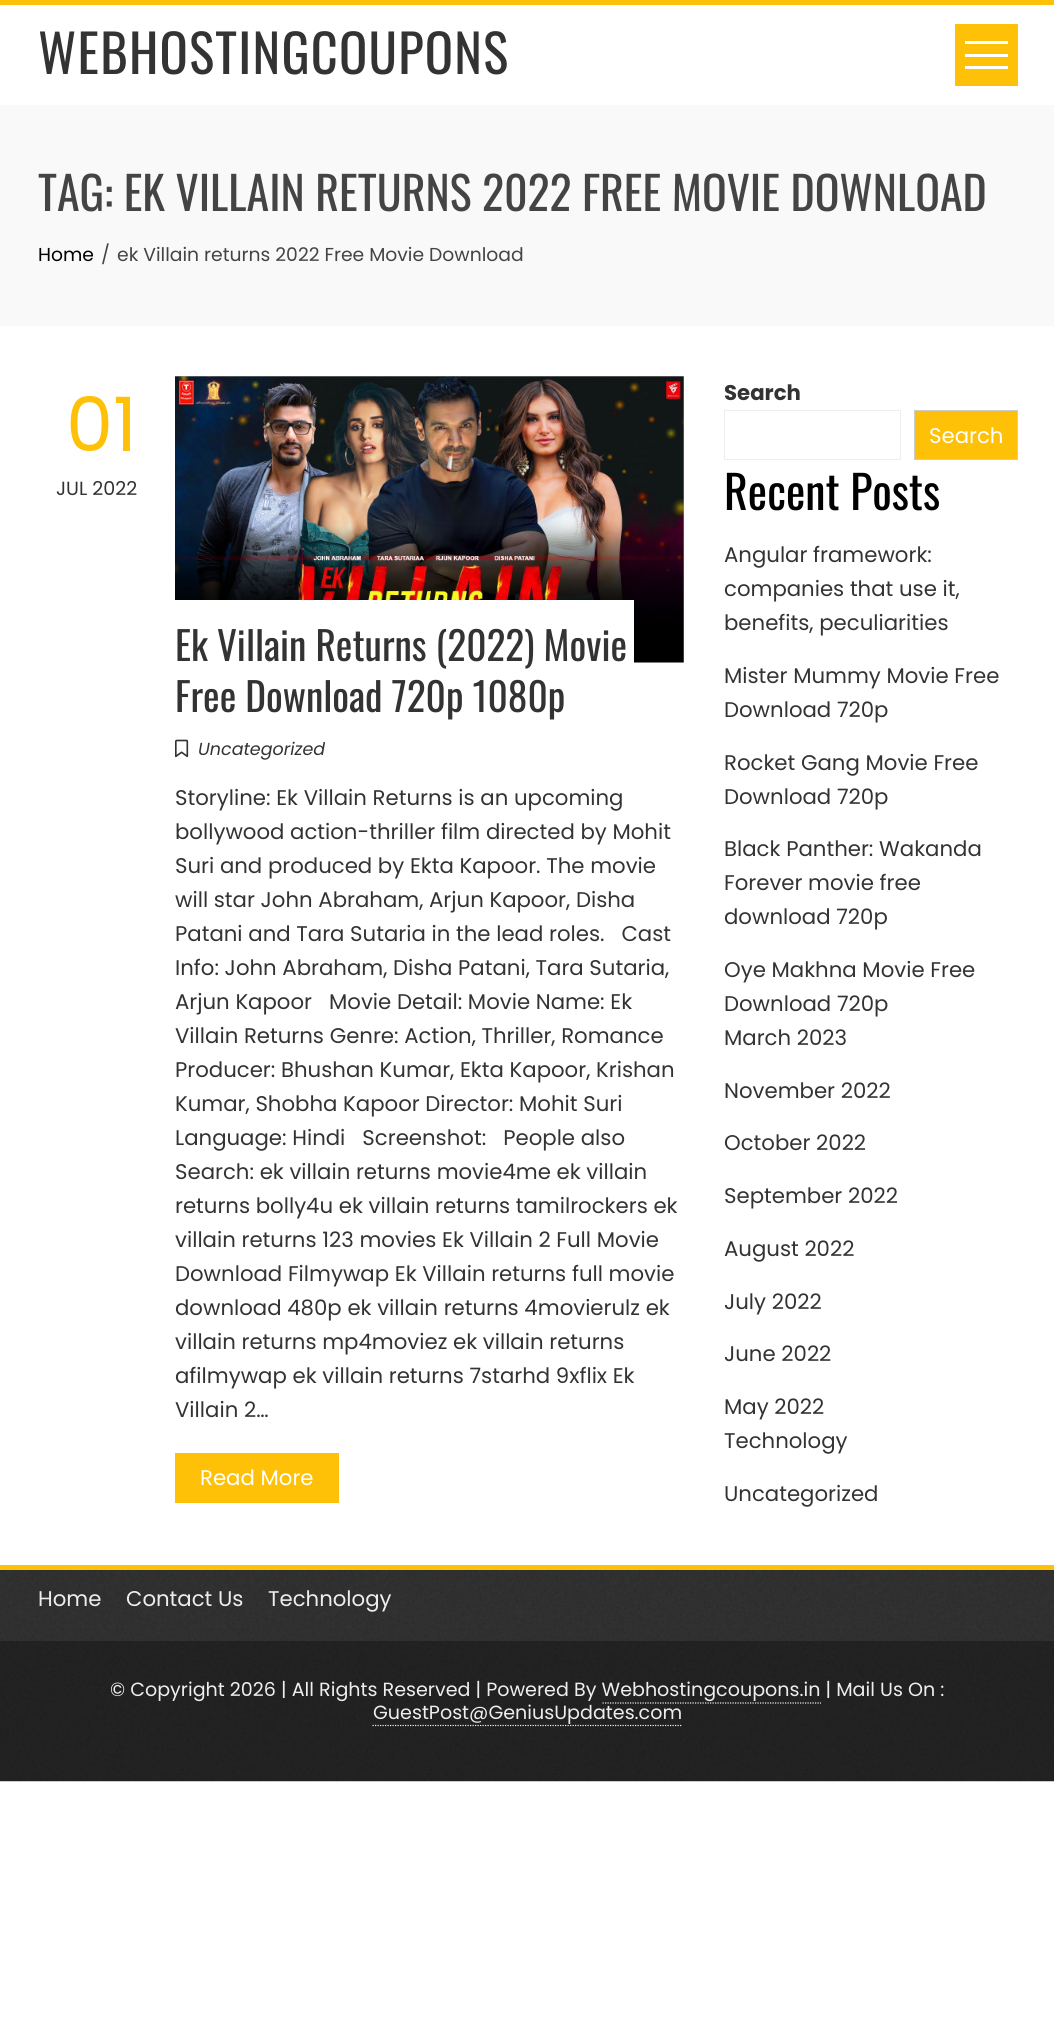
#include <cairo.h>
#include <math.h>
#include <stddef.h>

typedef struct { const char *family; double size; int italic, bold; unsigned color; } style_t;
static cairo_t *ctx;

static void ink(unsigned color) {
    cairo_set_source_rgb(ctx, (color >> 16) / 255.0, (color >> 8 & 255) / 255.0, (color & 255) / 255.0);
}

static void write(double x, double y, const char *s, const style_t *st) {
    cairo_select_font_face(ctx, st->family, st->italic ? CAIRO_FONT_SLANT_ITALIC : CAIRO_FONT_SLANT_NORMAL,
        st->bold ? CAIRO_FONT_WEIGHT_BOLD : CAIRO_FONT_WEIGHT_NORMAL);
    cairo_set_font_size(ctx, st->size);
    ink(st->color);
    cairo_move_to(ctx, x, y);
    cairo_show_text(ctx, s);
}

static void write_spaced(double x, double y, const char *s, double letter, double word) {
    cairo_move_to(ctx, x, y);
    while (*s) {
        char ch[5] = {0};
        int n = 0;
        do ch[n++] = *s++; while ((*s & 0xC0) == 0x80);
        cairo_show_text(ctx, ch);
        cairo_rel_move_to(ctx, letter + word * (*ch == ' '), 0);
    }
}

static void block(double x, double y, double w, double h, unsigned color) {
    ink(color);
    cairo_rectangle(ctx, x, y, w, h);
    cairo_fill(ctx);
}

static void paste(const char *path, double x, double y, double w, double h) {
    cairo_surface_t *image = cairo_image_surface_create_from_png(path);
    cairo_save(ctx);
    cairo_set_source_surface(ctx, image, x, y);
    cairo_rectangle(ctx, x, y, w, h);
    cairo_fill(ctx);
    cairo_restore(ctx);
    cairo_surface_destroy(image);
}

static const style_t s1 = {"Oswald", 45.9, 0, 0, 0x444444};
static const style_t s2 = {"Poppins", 18.75, 0, 0, 0x000000};
static const style_t s3 = {"Poppins", 18.75, 0, 0, 0x444444};
static const style_t s4 = {"Poppins", 75, 0, 0, 0xffc107};
static const style_t s5 = {"Poppins", 19.1, 0, 0, 0x333333};
static const style_t s6 = {"Oswald", 39.4, 0, 0, 0x333333};
static const style_t s7 = {"Poppins", 17.5, 1, 0, 0x333333};
static const style_t s8 = {"Poppins", 21.25, 0, 0, 0x333333};
static const style_t s9 = {"Poppins", 21.25, 0, 0, 0xffffff};
static const style_t s10 = {"Poppins", 21.25, 0, 1, 0x333333};
static const style_t s11 = {"Oswald", 45.9, 0, 0, 0x000000};
static const style_t s12 = {"Poppins", 21.25, 0, 0, 0xeeeeee};
static const style_t s13 = {"Poppins", 19.1, 0, 0, 0xeeeeee};

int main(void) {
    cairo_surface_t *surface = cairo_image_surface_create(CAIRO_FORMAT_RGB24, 1054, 2020);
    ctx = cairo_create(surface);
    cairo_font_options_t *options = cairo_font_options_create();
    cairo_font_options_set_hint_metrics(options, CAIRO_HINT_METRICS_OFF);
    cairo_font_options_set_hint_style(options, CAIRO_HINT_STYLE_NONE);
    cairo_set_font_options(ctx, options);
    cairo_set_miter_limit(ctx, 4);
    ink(0xffffff);
    cairo_paint(ctx);
    block(0, 0, 1054, 5, 0xffc107);
    cairo_select_font_face(ctx, "Oswald", CAIRO_FONT_SLANT_NORMAL, CAIRO_FONT_WEIGHT_NORMAL);
    cairo_set_font_size(ctx, 52.5);
    ink(0x333333);
    write_spaced(38, 74, "WEBHOSTINGCOUPONS", 1.25, 0);
    block(955, 24, 63, 62, 0xffc107);
    block(965, 41, 43, 3, 0xffffff);
    block(965, 66, 43, 3, 0xffffff);
    block(965, 54, 43, 3, 0xffffff);
    block(0, 105, 1054, 221, 0xf9f9f9);
    write(38, 211, "TAG: EK VILLAIN RETURNS 2022 FREE MOVIE DOWNLOAD", &s1);
    write(38, 261, "Home", &s2);
    write(101, 261, "/", &s3);
    write(117, 261, "ek Villain returns 2022 Free Movie Download", &s3);
    write(66, 451, "01", &s4);
    write(56, 495, "JUL 2022", &s5);
    block(175, 376, 509, 287, 0xf9f9f9);
    paste("pic1.png", 175, 376, 509, 287);
    block(175, 600, 459, 63, 0xffffff);
    write(175, 661, "Ek Villain Returns (2022) Movie", &s6);
    write(175, 712, "Free Download 720p 1080p", &s6);
    paste("pic2.png", 175, 739, 14, 19);
    write(198, 755, "Uncategorized", &s7);
    write(175, 805, "Storyline: Ek Villain Returns is an upcoming", &s8);
    write(175, 839, "bollywood action-thriller film directed by Mohit", &s8);
    write(175, 873, "Suri and produced by Ekta Kapoor. The movie", &s8);
    write(175, 907, "will star John Abraham, Arjun Kapoor, Disha", &s8);
    write(175, 941, "Patani and Tara Sutaria in the lead roles.   Cast", &s8);
    write(175, 975, "Info: John Abraham, Disha Patani, Tara Sutaria,", &s8);
    write(175, 1009, "Arjun Kapoor   Movie Detail: Movie Name: Ek", &s8);
    write(175, 1043, "Villain Returns Genre: Action, Thriller, Romance", &s8);
    write(175, 1077, "Producer: Bhushan Kumar, Ekta Kapoor, Krishan", &s8);
    write(175, 1111, "Kumar, Shobha Kapoor Director: Mohit Suri", &s8);
    write(175, 1145, "Language: Hindi   Screenshot:   People also", &s8);
    write(175, 1179, "Search: ek villain returns movie4me ek villain", &s8);
    write(175, 1213, "returns bolly4u ek villain returns tamilrockers ek", &s8);
    write(175, 1247, "villain returns 123 movies Ek Villain 2 Full Movie", &s8);
    write(175, 1281, "Download Filmywap Ek Villain returns full movie", &s8);
    write(175, 1315, "download 480p ek villain returns 4movierulz ek", &s8);
    write(175, 1349, "villain returns mp4moviez ek villain returns", &s8);
    write(175, 1383, "afilmywap ek villain returns 7starhd 9xflix Ek", &s8);
    write(175, 1417, "Villain 2…", &s8);
    block(175, 1453, 164, 50, 0xffc107);
    write(200, 1485, "Read More", &s9);
    write(724, 400, "Search", &s10);
    cairo_rectangle(ctx, 724.5, 410.5, 176, 49);
    ink(0xeeeeee);
    cairo_set_line_width(ctx, 1);
    cairo_stroke(ctx);
    ink(0xffc107);
    cairo_rectangle(ctx, 914.5, 410.5, 103, 49);
    cairo_fill_preserve(ctx);
    ink(0xcccccc);
    cairo_stroke(ctx);
    write(929, 443, "Search", &s9);
    write(724, 510, "Recent Posts", &s11);
    write(724, 562, "Angular framework:", &s8);
    write(724, 596, "companies that use it,", &s8);
    write(724, 630, "benefits, peculiarities", &s8);
    write(724, 683, "Mister Mummy Movie Free", &s8);
    write(724, 717, "Download 720p", &s8);
    write(724, 770, "Rocket Gang Movie Free", &s8);
    write(724, 804, "Download 720p", &s8);
    write(724, 856, "Black Panther: Wakanda", &s8);
    write(724, 890, "Forever movie free", &s8);
    write(724, 924, "download 720p", &s8);
    write(724, 977, "Oye Makhna Movie Free", &s8);
    write(724, 1011, "Download 720p", &s8);
    write(724, 1045, "March 2023", &s8);
    write(724, 1098, "November 2022", &s8);
    write(724, 1150, "October 2022", &s8);
    write(724, 1203, "September 2022", &s8);
    write(724, 1256, "August 2022", &s8);
    write(724, 1309, "July 2022", &s8);
    write(724, 1361, "June 2022", &s8);
    write(724, 1414, "May 2022", &s8);
    write(724, 1448, "Technology", &s8);
    write(724, 1501, "Uncategorized", &s8);
    paste("pic3.png", 0, 1570, 1054, 212);
    block(0, 1565, 1054, 5, 0xffc107);
    write(38, 1606, "Home", &s12);
    write(126, 1606, "Contact Us", &s12);
    write(268, 1606, "Technology", &s12);
    cairo_set_source_rgba(ctx, 0, 0, 0, 0.3);
    cairo_rectangle(ctx, 0, 1641, 1054, 140);
    cairo_fill(ctx);
    write(110, 1696, "© Copyright 2026 | All Rights Reserved | Powered By Webhostingcoupons.in | Mail Us On :", &s13);
    cairo_new_path(ctx);
    cairo_move_to(ctx, 602.5, 1703);
    cairo_line_to(ctx, 821, 1703);
    cairo_set_line_width(ctx, 1.2);
    cairo_set_dash(ctx, (double[]){1.25, 1.25}, 2, 0);
    cairo_stroke(ctx);
    write(373, 1719, "GuestPost@GeniusUpdates.com", &s13);
    cairo_new_path(ctx);
    cairo_move_to(ctx, 372.5, 1725.5);
    cairo_line_to(ctx, 682.5, 1725.5);
    cairo_stroke(ctx);
    cairo_surface_write_to_png(surface, "screenshot.png");
    cairo_font_options_destroy(options);
    cairo_destroy(ctx);
    cairo_surface_destroy(surface);
    return 0;
}
